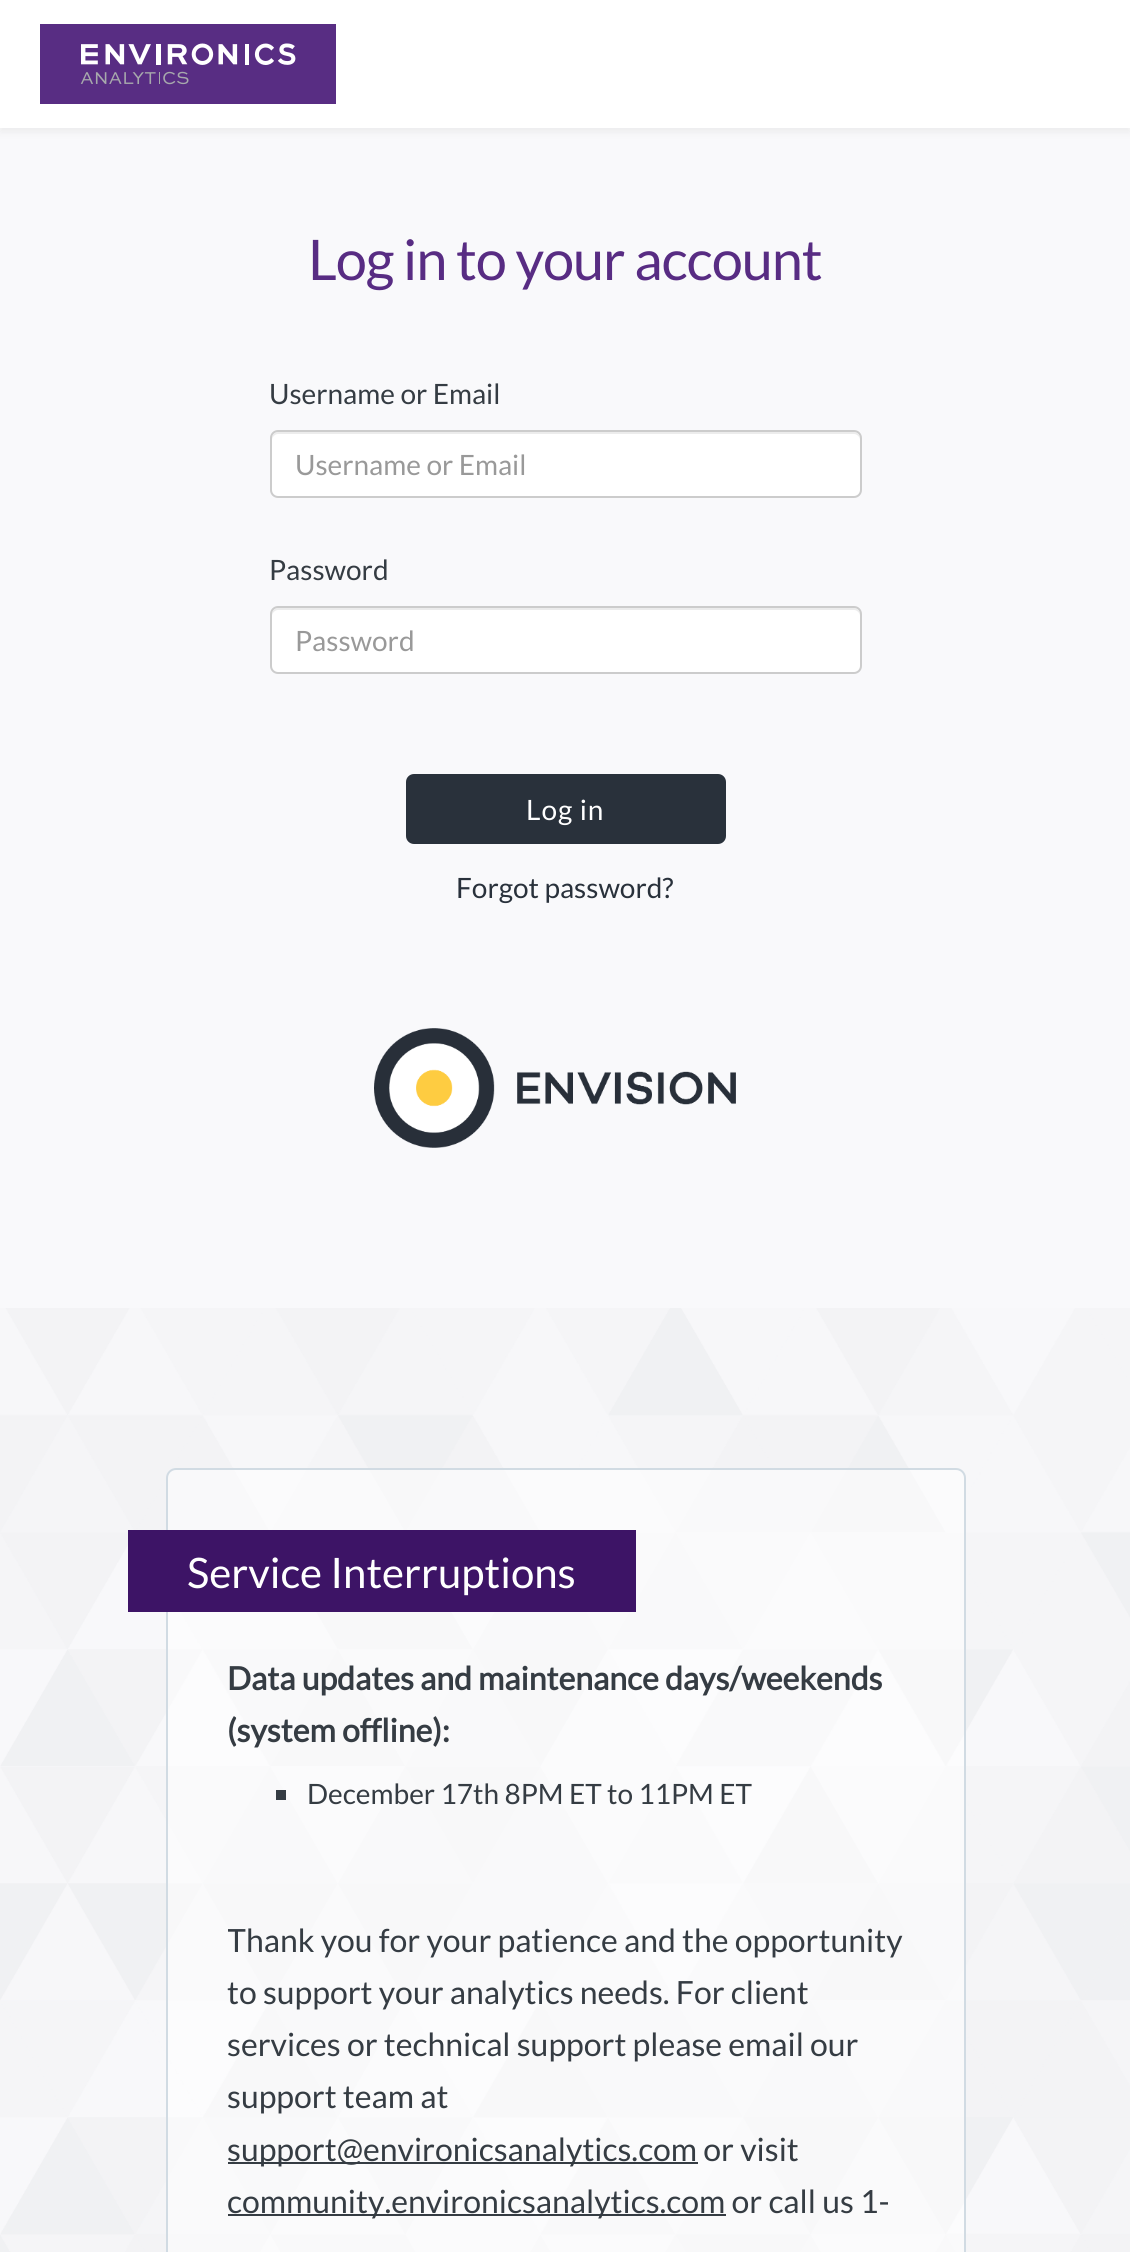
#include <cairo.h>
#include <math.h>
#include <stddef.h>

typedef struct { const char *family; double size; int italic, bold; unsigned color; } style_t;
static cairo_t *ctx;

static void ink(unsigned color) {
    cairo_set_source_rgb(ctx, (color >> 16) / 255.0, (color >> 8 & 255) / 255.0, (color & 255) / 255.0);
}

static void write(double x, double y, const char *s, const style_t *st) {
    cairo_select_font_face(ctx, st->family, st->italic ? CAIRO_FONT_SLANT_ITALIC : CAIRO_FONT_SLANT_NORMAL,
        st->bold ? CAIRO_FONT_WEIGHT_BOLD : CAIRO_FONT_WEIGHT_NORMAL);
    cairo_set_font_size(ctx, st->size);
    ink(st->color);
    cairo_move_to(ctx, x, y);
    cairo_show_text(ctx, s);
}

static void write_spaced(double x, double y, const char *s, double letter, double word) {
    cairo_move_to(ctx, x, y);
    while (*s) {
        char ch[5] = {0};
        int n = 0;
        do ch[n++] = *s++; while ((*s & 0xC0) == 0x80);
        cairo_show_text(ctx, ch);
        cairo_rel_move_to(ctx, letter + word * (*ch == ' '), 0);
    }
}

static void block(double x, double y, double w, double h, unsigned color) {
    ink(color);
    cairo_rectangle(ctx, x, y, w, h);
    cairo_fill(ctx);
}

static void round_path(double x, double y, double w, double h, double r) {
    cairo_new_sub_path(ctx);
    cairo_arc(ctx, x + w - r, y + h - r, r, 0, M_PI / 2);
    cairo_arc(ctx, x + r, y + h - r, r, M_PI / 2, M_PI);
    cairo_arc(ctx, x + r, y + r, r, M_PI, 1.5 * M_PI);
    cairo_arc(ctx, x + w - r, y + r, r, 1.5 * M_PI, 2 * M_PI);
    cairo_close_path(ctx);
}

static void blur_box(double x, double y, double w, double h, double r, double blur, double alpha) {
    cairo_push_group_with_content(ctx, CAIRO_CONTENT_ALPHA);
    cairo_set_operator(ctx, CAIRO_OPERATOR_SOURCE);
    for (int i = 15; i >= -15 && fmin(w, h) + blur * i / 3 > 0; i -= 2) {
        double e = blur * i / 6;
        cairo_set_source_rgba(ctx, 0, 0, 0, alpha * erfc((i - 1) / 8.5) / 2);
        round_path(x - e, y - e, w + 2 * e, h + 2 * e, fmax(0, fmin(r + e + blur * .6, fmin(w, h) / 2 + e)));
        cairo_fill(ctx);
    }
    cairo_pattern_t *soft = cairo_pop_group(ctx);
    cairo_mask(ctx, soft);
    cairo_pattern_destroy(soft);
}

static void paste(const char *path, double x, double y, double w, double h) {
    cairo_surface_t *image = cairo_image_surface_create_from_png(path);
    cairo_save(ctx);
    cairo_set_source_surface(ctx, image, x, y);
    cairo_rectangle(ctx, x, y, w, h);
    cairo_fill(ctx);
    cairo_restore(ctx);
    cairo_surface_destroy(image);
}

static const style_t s1 = {"Lato", 28, 0, 0, 0x353c43};
static const style_t s2 = {"Lato", 28, 0, 0, 0x999999};
static const style_t s3 = {"Lato", 28, 0, 0, 0x29313b};
static const style_t s4 = {"Lato", 42, 0, 0, 0xffffff};
static const style_t s5 = {"Lato", 32, 0, 1, 0x353c43};
static const style_t s6 = {"Lato", 32, 0, 0, 0x353c43};

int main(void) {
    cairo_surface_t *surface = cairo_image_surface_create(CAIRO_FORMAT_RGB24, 1130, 2252);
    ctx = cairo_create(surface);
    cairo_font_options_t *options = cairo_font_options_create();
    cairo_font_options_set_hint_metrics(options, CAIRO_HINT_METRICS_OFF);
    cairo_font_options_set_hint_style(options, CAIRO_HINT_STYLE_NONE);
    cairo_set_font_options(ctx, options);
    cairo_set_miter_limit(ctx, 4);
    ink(0xf9f9fb);
    cairo_paint(ctx);
    ink(0xdedede);
    blur_box(0, 4, 1130, 128, 0, 4, 0.5);
    block(0, 0, 1130, 128, 0xffffff);
    paste("pic1.png", 40, 24, 296, 80);
    cairo_select_font_face(ctx, "Lato", CAIRO_FONT_SLANT_NORMAL, CAIRO_FONT_WEIGHT_NORMAL);
    cairo_set_font_size(ctx, 56);
    ink(0x582c83);
    write_spaced(308, 280, "Log in to your account", -1.1, 0);
    write(269, 404, "Username or Email", &s1);
    ink(0xffffff);
    round_path(272, 432, 588, 64, 6);
    cairo_fill(ctx);
    ink(0xececec);
    cairo_new_path(ctx);
    cairo_move_to(ctx, 278, 434);
    cairo_line_to(ctx, 854, 434);
    cairo_curve_to(ctx, 857, 434, 860, 437, 860, 440);
    cairo_line_to(ctx, 860, 438);
    cairo_curve_to(ctx, 860, 435, 857, 432, 854, 432);
    cairo_line_to(ctx, 278, 432);
    cairo_curve_to(ctx, 275, 432, 272, 435, 272, 438);
    cairo_line_to(ctx, 272, 440);
    cairo_curve_to(ctx, 272, 437, 275, 434, 278, 434);
    cairo_close_path(ctx);
    cairo_fill(ctx);
    round_path(271, 431, 590, 66, 7);
    ink(0xcccccc);
    cairo_stroke(ctx);
    write(295, 475, "Username or Email", &s2);
    write(269, 580, "Password", &s1);
    ink(0xffffff);
    round_path(272, 608, 588, 64, 6);
    cairo_fill(ctx);
    ink(0xececec);
    cairo_new_path(ctx);
    cairo_move_to(ctx, 278, 610);
    cairo_line_to(ctx, 854, 610);
    cairo_curve_to(ctx, 857, 610, 860, 613, 860, 616);
    cairo_line_to(ctx, 860, 614);
    cairo_curve_to(ctx, 860, 611, 857, 608, 854, 608);
    cairo_line_to(ctx, 278, 608);
    cairo_curve_to(ctx, 275, 608, 272, 611, 272, 614);
    cairo_line_to(ctx, 272, 616);
    cairo_curve_to(ctx, 272, 613, 275, 610, 278, 610);
    cairo_close_path(ctx);
    cairo_fill(ctx);
    round_path(271, 607, 590, 66, 7);
    ink(0xcccccc);
    cairo_stroke(ctx);
    write(295, 651, "Password", &s2);
    ink(0x29313b);
    round_path(406, 774, 320, 70, 8);
    cairo_fill(ctx);
    ink(0xffffff);
    write_spaced(526, 820, "Log in", 1, 0);
    write(456, 898, "Forgot password?", &s3);
    paste("pic2.png", 374, 1028, 362, 120);
    paste("pic3.png", 0, 1308, 1130, 944);
    cairo_set_source_rgba(ctx, 1, 1, 1, 0.5);
    round_path(167, 1469, 798, 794, 9);
    cairo_fill_preserve(ctx);
    ink(0xd1dbe3);
    cairo_stroke(ctx);
    block(128, 1530, 508, 82, 0x3d1466);
    write(187, 1588, "Service Interruptions", &s4);
    write(227, 1690, "Data updates and maintenance days/weekends", &s5);
    write(227, 1742, "(system offline):", &s5);
    block(276, 1790, 10, 10, 0x353c43);
    write(307, 1804, "December 17th 8PM ET to 11PM ET", &s1);
    cairo_save(ctx);
    cairo_rectangle(ctx, 228, 1652, 706, 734);
    cairo_clip(ctx);
    write(227, 1952, "Thank you for your patience and the opportunity", &s6);
    cairo_restore(ctx);
    write(227, 2004, "to support your analytics needs. For client", &s6);
    write(227, 2056, "services or technical support please email our", &s6);
    write(227, 2108, "support team at", &s6);
    block(228, 2162, 470, 2, 0x353c43);
    write(227, 2161, "support@environicsanalytics.com or visit", &s6);
    block(228, 2214, 498, 2, 0x353c43);
    write(227, 2213, "community.environicsanalytics.com or call us 1-", &s6);
    cairo_surface_write_to_png(surface, "screenshot.png");
    cairo_font_options_destroy(options);
    cairo_destroy(ctx);
    cairo_surface_destroy(surface);
    return 0;
}
